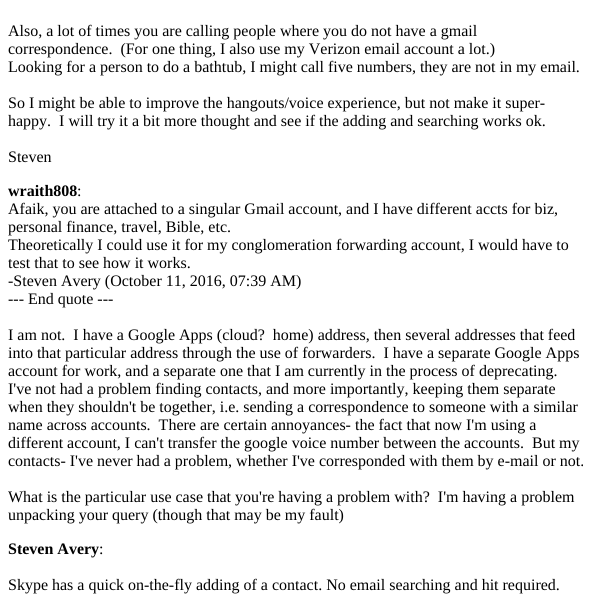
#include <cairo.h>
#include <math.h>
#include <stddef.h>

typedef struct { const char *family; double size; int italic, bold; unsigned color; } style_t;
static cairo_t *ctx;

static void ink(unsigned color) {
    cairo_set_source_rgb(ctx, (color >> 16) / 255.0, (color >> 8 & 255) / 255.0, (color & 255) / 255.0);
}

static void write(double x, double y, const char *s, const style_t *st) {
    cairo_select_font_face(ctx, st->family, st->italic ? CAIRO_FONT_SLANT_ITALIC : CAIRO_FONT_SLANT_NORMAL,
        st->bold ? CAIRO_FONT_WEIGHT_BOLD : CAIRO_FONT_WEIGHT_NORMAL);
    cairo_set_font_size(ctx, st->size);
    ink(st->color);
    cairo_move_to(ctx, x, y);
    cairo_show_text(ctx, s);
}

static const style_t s1 = {"Liberation Serif", 16, 0, 0, 0x000000};
static const style_t s2 = {"Liberation Serif", 16, 0, 1, 0x000000};

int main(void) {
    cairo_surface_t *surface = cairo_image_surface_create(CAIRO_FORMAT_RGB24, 594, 594);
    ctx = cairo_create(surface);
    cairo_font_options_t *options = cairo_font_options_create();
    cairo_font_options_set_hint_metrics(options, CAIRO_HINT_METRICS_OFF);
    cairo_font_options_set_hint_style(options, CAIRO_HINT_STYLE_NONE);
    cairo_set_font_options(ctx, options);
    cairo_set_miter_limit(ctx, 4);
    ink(0xffffff);
    cairo_paint(ctx);
    write(8, 36, "Also, a lot of times you are calling people where you do not have a gmail", &s1);
    write(8, 54, "correspondence.  (For one thing, I also use my Verizon email account a lot.)", &s1);
    write(8, 72, "Looking for a person to do a bathtub, I might call five numbers, they are not in my email.", &s1);
    write(8, 108, "So I might be able to improve the hangouts/voice experience, but not make it super-", &s1);
    write(8, 126, "happy.  I will try it a bit more thought and see if the adding and searching works ok.", &s1);
    write(8, 162, "Steven", &s1);
    write(8, 196, "wraith808", &s2);
    write(77, 196, ":", &s1);
    write(8, 214, "Afaik, you are attached to a singular Gmail account, and I have different accts for biz,", &s1);
    write(8, 232, "personal finance, travel, Bible, etc.", &s1);
    write(8, 250, "Theoretically I could use it for my conglomeration forwarding account, I would have to", &s1);
    write(8, 268, "test that to see how it works.", &s1);
    write(8, 286, "-Steven Avery (October 11, 2016, 07:39 AM)", &s1);
    write(8, 304, "--- End quote ---", &s1);
    write(8, 340, "I am not.  I have a Google Apps (cloud?  home) address, then several addresses that feed", &s1);
    write(8, 358, "into that particular address through the use of forwarders.  I have a separate Google Apps", &s1);
    write(8, 376, "account for work, and a separate one that I am currently in the process of deprecating.", &s1);
    write(8, 394, "I've not had a problem finding contacts, and more importantly, keeping them separate", &s1);
    write(8, 412, "when they shouldn't be together, i.e. sending a correspondence to someone with a similar", &s1);
    write(8, 430, "name across accounts.  There are certain annoyances- the fact that now I'm using a", &s1);
    write(8, 448, "different account, I can't transfer the google voice number between the accounts.  But my", &s1);
    write(8, 466, "contacts- I've never had a problem, whether I've corresponded with them by e-mail or not.", &s1);
    write(8, 502, "What is the particular use case that you're having a problem with?  I'm having a problem", &s1);
    write(8, 520, "unpacking your query (though that may be my fault)", &s1);
    write(8, 554, "Steven Avery", &s2);
    write(99, 554, ":", &s1);
    write(8, 590, "Skype has a quick on-the-fly adding of a contact. No email searching and hit required.", &s1);
    cairo_surface_write_to_png(surface, "screenshot.png");
    cairo_font_options_destroy(options);
    cairo_destroy(ctx);
    cairo_surface_destroy(surface);
    return 0;
}
